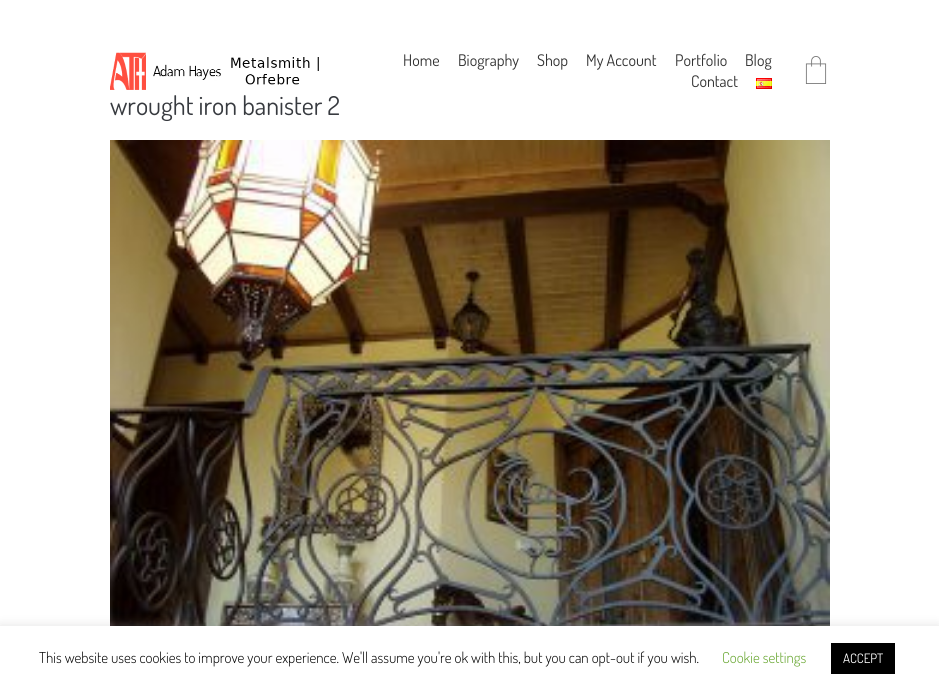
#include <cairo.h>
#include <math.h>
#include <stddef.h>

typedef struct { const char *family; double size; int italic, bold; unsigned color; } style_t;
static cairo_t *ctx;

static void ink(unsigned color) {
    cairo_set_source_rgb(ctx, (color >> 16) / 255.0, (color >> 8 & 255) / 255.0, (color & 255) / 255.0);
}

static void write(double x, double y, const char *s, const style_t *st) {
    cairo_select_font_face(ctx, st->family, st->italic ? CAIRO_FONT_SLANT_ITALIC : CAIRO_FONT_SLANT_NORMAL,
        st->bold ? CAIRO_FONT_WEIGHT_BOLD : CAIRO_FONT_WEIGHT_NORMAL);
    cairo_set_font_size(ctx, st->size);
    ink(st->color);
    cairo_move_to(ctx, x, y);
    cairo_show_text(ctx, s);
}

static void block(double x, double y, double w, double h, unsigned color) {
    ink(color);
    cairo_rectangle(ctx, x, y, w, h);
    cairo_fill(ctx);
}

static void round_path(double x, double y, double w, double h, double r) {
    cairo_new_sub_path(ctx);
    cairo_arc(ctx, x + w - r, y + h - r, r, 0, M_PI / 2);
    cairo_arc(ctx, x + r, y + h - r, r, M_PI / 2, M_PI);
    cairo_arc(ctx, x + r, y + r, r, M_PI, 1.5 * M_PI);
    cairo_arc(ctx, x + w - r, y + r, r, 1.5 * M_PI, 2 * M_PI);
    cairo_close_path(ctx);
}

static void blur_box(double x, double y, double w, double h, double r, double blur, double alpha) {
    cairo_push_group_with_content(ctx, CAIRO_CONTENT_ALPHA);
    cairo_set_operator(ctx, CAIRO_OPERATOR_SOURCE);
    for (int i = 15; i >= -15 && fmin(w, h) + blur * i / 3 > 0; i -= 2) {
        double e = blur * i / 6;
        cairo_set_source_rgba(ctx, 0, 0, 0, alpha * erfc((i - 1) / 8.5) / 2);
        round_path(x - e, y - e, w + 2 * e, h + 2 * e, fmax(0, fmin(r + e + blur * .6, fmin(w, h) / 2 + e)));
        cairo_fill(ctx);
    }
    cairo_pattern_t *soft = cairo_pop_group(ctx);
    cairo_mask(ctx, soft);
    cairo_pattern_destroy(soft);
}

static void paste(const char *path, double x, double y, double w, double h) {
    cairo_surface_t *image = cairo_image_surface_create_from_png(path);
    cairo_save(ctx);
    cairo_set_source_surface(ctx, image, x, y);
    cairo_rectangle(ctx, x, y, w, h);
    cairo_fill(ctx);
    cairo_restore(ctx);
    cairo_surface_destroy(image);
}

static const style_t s1 = {"Dosis", 16, 0, 0, 0x333333};
static const style_t s2 = {"Dosis", 26, 0, 0, 0x373a3f};
static const style_t s3 = {"Dosis Light", 15, 0, 0, 0x000000};
static const style_t s4 = {"Dosis Light", 15, 0, 0, 0x62a329};
static const style_t s5 = {"Dosis", 13, 0, 0, 0xffffff};

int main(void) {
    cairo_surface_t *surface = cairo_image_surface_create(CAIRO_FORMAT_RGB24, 939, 691);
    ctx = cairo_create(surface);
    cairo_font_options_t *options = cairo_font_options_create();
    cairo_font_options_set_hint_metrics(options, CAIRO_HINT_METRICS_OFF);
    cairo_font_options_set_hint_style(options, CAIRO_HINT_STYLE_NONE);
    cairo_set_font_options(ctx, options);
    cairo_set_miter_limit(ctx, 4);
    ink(0xffffff);
    cairo_paint(ctx);
    paste("pic1.png", 110, 52, 209, 38);
    write(403, 66, "Home", &s1);
    write(458, 66, "Biography", &s1);
    write(537, 66, "Shop", &s1);
    write(586, 66, "My Account", &s1);
    write(675, 66, "Portfolio", &s1);
    write(745, 66, "Blog", &s1);
    write(691, 87, "Contact", &s1);
    paste("pic2.png", 756, 78, 16, 11);
    paste("pic3.png", 805, 56, 22, 28);
    write(110, 115, "wrought iron banister 2", &s2);
    paste("pic4.png", 110, 140, 720, 486);
    ink(0xacabab);
    blur_box(0, 625, 939, 65, 0, 5, 0.3);
    block(0, 626, 939, 65, 0xffffff);
    write(39, 663, "This website uses cookies to improve your experience. We'll assume you're ok with this, but you can opt-out if you wish.", &s3);
    write(722, 663, "Cookie settings", &s4);
    block(831, 643, 64, 31, 0x000000);
    write(843, 663, "ACCEPT", &s5);
    cairo_surface_write_to_png(surface, "screenshot.png");
    cairo_font_options_destroy(options);
    cairo_destroy(ctx);
    cairo_surface_destroy(surface);
    return 0;
}
